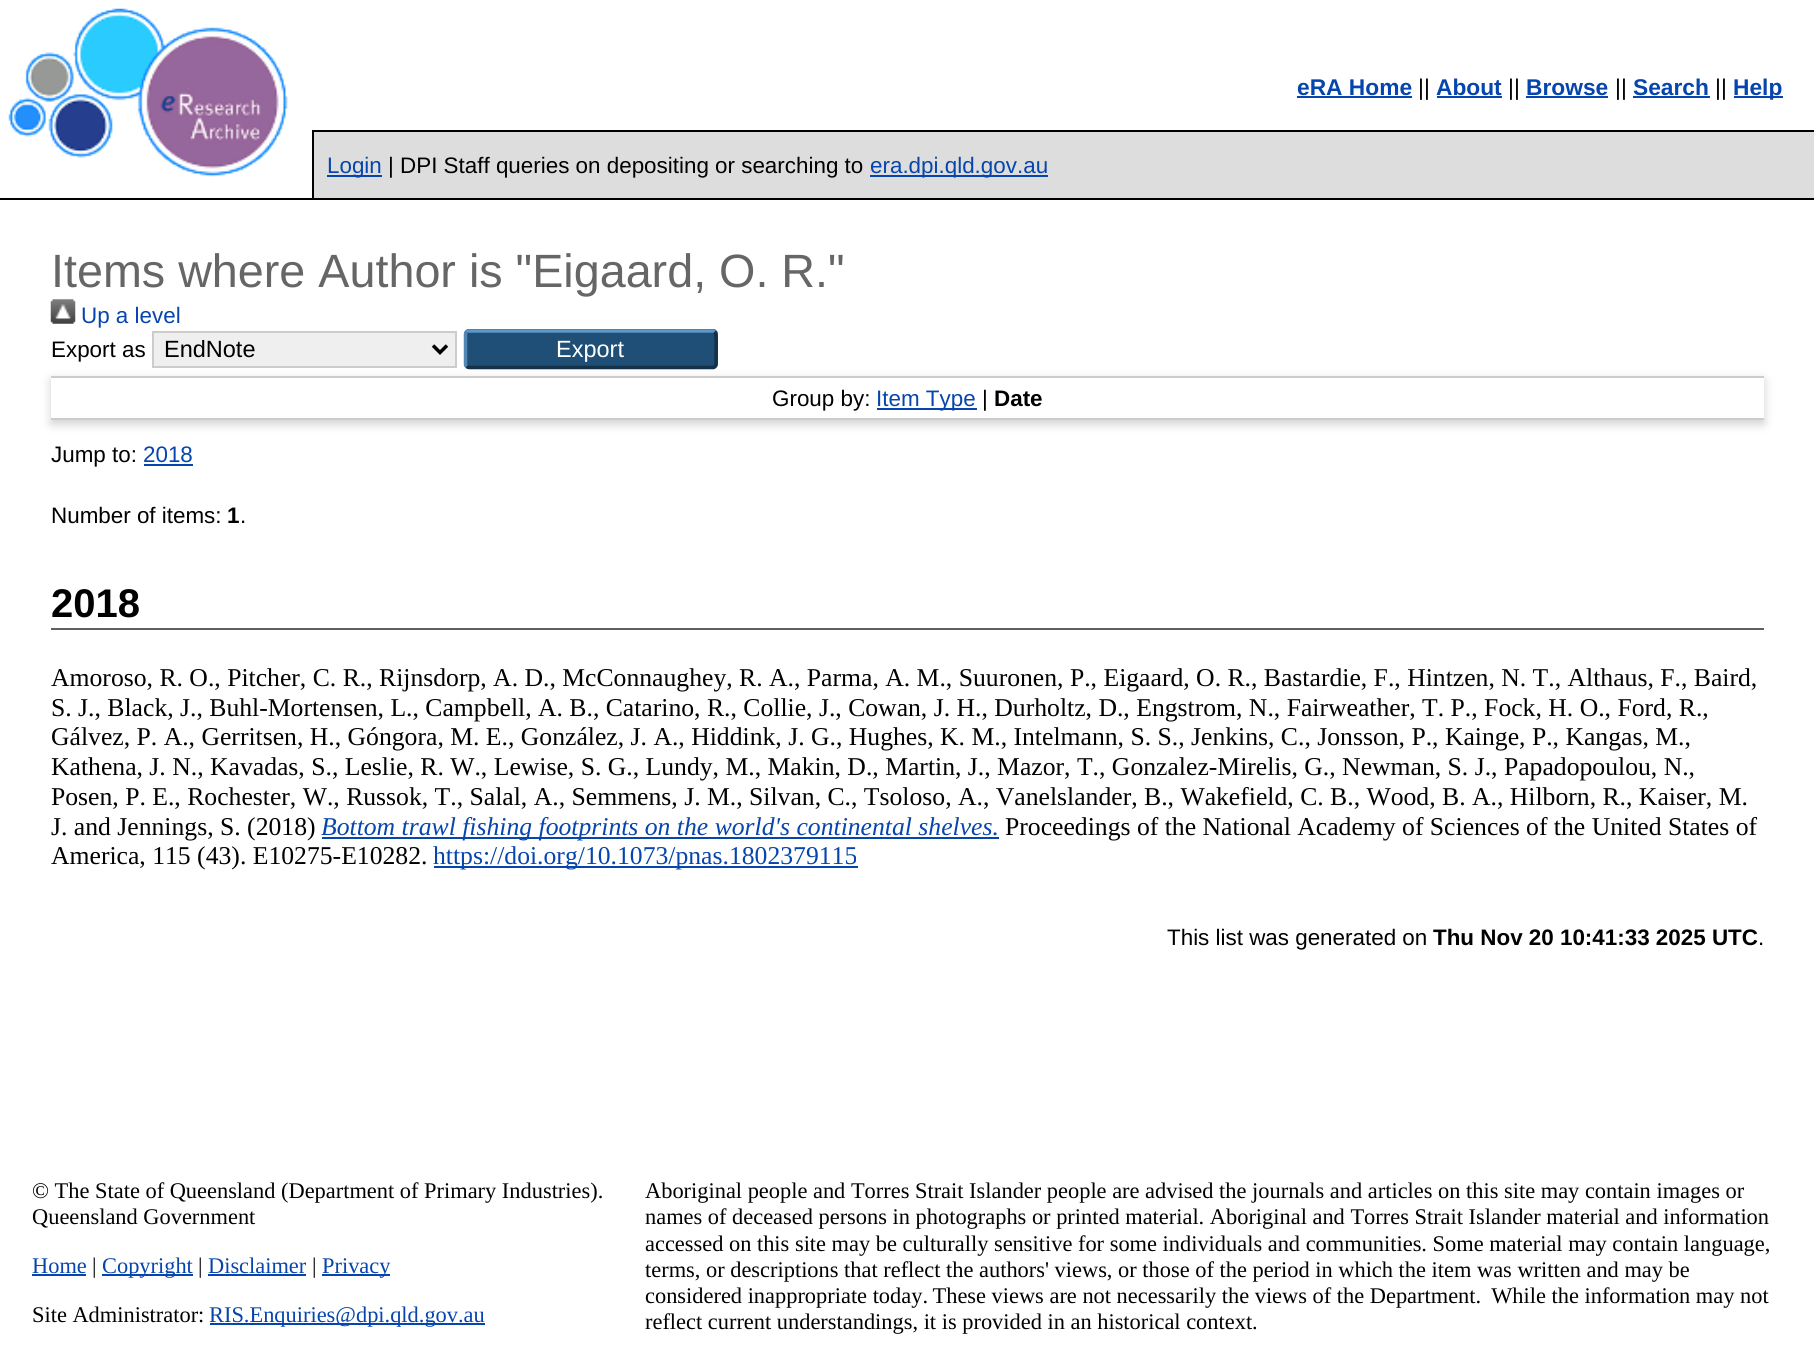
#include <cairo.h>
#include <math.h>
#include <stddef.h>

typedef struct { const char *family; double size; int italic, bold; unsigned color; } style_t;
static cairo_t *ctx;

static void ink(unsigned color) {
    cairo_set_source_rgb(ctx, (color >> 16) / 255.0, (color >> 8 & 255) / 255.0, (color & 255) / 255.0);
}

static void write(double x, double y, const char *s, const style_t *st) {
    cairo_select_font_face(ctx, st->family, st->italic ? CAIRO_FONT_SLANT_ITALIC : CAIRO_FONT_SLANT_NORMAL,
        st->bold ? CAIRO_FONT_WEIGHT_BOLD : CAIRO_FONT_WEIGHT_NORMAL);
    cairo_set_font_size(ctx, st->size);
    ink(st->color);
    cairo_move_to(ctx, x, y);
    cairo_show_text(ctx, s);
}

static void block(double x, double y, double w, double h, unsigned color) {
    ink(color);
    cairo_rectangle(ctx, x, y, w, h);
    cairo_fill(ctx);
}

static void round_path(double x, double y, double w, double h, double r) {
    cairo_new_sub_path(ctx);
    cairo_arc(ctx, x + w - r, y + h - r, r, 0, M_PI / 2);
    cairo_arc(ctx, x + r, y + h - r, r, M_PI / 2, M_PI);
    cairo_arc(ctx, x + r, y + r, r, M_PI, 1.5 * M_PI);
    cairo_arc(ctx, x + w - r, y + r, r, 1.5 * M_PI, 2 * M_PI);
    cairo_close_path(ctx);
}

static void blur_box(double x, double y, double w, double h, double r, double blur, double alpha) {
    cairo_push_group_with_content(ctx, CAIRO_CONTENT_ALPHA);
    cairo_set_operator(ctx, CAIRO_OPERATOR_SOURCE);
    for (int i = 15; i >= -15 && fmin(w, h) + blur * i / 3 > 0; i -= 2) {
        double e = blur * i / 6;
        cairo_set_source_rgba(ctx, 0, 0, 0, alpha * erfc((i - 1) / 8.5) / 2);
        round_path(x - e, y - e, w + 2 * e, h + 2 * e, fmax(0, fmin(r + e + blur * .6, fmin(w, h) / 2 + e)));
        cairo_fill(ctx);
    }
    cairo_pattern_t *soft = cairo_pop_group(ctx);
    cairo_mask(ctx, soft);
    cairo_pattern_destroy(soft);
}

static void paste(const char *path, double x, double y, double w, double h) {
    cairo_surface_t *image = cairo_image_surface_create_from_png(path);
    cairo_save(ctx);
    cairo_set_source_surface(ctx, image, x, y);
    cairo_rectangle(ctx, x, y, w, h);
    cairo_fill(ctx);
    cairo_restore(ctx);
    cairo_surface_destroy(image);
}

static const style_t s1 = {"Liberation Sans", 22.75, 0, 1, 0x0645ad};
static const style_t s2 = {"Liberation Sans", 22.75, 0, 0, 0x000000};
static const style_t s3 = {"Liberation Sans", 22.4, 0, 0, 0x0645ad};
static const style_t s4 = {"Liberation Sans", 22.4, 0, 0, 0x000000};
static const style_t s5 = {"Liberation Sans", 46.7, 0, 0, 0x666666};
static const style_t s6 = {"Liberation Sans", 23.5, 0, 0, 0x000000};
static const style_t s7 = {"Liberation Sans", 23.5, 0, 0, 0xffffff};
static const style_t s8 = {"Liberation Sans", 22.4, 0, 1, 0x000000};
static const style_t s9 = {"Liberation Sans", 40, 0, 1, 0x000000};
static const style_t s10 = {"Liberation Serif", 25.67, 0, 0, 0x000000};
static const style_t s11 = {"Liberation Serif", 25.67, 1, 0, 0x0645ad};
static const style_t s12 = {"Liberation Serif", 25.67, 0, 0, 0x0645ad};
static const style_t s13 = {"Liberation Serif", 22.4, 0, 0, 0x000000};
static const style_t s14 = {"Liberation Serif", 22.4, 0, 0, 0x0645ad};

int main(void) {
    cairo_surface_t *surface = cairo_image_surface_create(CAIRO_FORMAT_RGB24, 1814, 1369);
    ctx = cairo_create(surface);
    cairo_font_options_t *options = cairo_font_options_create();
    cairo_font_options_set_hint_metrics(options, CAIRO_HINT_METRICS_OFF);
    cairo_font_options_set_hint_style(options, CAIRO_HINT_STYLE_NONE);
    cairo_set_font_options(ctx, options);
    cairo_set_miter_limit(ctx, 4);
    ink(0xffffff);
    cairo_paint(ctx);
    block(0, 198, 1814, 2, 0x000000);
    paste("pic1.png", 8, 8, 280, 169);
    write(1297, 95, "eRA Home", &s1);
    block(1297, 96, 115, 2, 0x0645ad);
    write(1418, 95, "||", &s2);
    write(1436, 95, "About", &s1);
    block(1437, 96, 65, 2, 0x0645ad);
    write(1508, 95, "||", &s2);
    write(1526, 95, "Browse", &s1);
    block(1526, 96, 82, 2, 0x0645ad);
    write(1615, 95, "||", &s2);
    write(1633, 95, "Search", &s1);
    block(1633, 96, 77, 2, 0x0645ad);
    write(1715, 95, "||", &s2);
    block(1734, 96, 49, 2, 0x0645ad);
    write(1733, 95, "Help", &s1);
    block(314, 132, 1500, 66, 0xdddddd);
    block(312, 130, 1502, 2, 0x000000);
    block(312, 130, 2, 68, 0x000000);
    block(327, 175, 55, 2, 0x0645ad);
    write(327, 173, "Login", &s3);
    write(388, 173, "| DPI Staff queries on depositing or searching to", &s4);
    block(870, 175, 178, 2, 0x0645ad);
    write(870, 173, "era.dpi.qld.gov.au", &s3);
    write(51, 287, "Items where Author is \"Eigaard, O. R.\"", &s5);
    paste("pic2.png", 50, 299, 26, 25);
    write(81, 323, "Up a level", &s3);
    write(51, 357, "Export as", &s4);
    ink(0x646464);
    blur_box(51, 380, 1713, 44, 0, 5, 0.3);
    ink(0xefefef);
    cairo_rectangle(ctx, 153, 332, 303, 35);
    cairo_fill_preserve(ctx);
    ink(0xcccccc);
    cairo_stroke(ctx);
    cairo_new_path(ctx);
    cairo_move_to(ctx, 433, 345.5);
    cairo_line_to(ctx, 440, 352.5);
    cairo_line_to(ctx, 447, 345.5);
    ink(0x000000);
    cairo_set_line_width(ctx, 3.5);
    cairo_stroke(ctx);
    write(164, 357, "EndNote", &s6);
    ink(0x1f4f76);
    round_path(464, 329, 254, 40, 5);
    cairo_fill(ctx);
    cairo_new_path(ctx);
    cairo_move_to(ctx, 466.5, 332);
    cairo_curve_to(ctx, 467, 331, 468, 331, 469, 331);
    cairo_line_to(ctx, 712, 331);
    cairo_curve_to(ctx, 713, 331, 714, 331, 714.5, 332);
    ink(0x5b97c7);
    cairo_stroke(ctx);
    cairo_new_path(ctx);
    cairo_move_to(ctx, 714.5, 332);
    cairo_curve_to(ctx, 717, 334, 716, 350.5, 716, 354);
    cairo_line_to(ctx, 716, 359);
    cairo_curve_to(ctx, 716, 361.5, 716.5, 366.5, 713.5, 367.5);
    cairo_line_to(ctx, 469, 367.5);
    cairo_line_to(ctx, 466.5, 366.5);
    ink(0x13324a);
    cairo_stroke(ctx);
    cairo_new_path(ctx);
    cairo_move_to(ctx, 466.5, 366.5);
    cairo_curve_to(ctx, 466, 366, 465.5, 365, 465.5, 364);
    cairo_line_to(ctx, 465.5, 334);
    cairo_curve_to(ctx, 465.5, 333.5, 466, 332.5, 466.5, 332);
    ink(0x5287b3);
    cairo_stroke(ctx);
    write(556, 357, "Export", &s7);
    block(51, 378, 1713, 40, 0xffffff);
    block(51, 376, 1713, 2, 0xcccccc);
    block(51, 418, 1713, 2, 0xcccccc);
    write(772, 406, "Group by:", &s4);
    block(877, 408, 100, 2, 0x0645ad);
    write(876, 406, "Item Type", &s3);
    write(982, 406, "|", &s4);
    write(994, 406, "Date", &s8);
    write(51, 462, "Jump to:", &s4);
    write(143, 462, "2018", &s3);
    block(144, 464, 49, 2, 0x0645ad);
    write(51, 523, "Number of items:", &s4);
    write(227, 523, "1", &s8);
    write(240, 523, ".", &s4);
    block(51, 628, 1713, 2, 0x606060);
    write(51, 617, "2018", &s9);
    write(51, 686, "Amoroso, R. O., Pitcher, C. R., Rijnsdorp, A. D., McConnaughey, R. A., Parma, A. M., Suuronen, P., Eigaard, O. R., Bastardie, F., Hintzen, N. T., Althaus, F., Baird,", &s10);
    write(51, 716, "S. J., Black, J., Buhl-Mortensen, L., Campbell, A. B., Catarino, R., Collie, J., Cowan, J. H., Durholtz, D., Engstrom, N., Fairweather, T. P., Fock, H. O., Ford, R.,", &s10);
    write(51, 745, "Gálvez, P. A., Gerritsen, H., Góngora, M. E., González, J. A., Hiddink, J. G., Hughes, K. M., Intelmann, S. S., Jenkins, C., Jonsson, P., Kainge, P., Kangas, M.,", &s10);
    write(51, 775, "Kathena, J. N., Kavadas, S., Leslie, R. W., Lewise, S. G., Lundy, M., Makin, D., Martin, J., Mazor, T., Gonzalez-Mirelis, G., Newman, S. J., Papadopoulou, N.,", &s10);
    write(51, 805, "Posen, P. E., Rochester, W., Russok, T., Salal, A., Semmens, J. M., Silvan, C., Tsoloso, A., Vanelslander, B., Wakefield, C. B., Wood, B. A., Hilborn, R., Kaiser, M.", &s10);
    write(51, 835, "J. and Jennings, S. (2018)", &s10);
    block(322, 837, 677, 2, 0x0645ad);
    write(321, 835, "Bottom trawl fishing footprints on the world's continental shelves.", &s11);
    write(1005, 835, "Proceedings of the National Academy of Sciences of the United States of", &s10);
    write(51, 864, "America, 115 (43). E10275-E10282.", &s10);
    block(434, 866, 424, 2, 0x0645ad);
    write(433, 864, "https://doi.org/10.1073/pnas.1802379115", &s12);
    write(1167, 945, "This list was generated on", &s4);
    write(1433, 945, "Thu Nov 20 10:41:33 2025 UTC", &s8);
    write(1758, 945, ".", &s4);
    write(32, 1198, "© The State of Queensland (Department of Primary Industries).", &s13);
    write(32, 1224, "Queensland Government", &s13);
    write(32, 1273, "Home", &s14);
    block(32, 1274, 54, 2, 0x0645ad);
    write(92, 1273, "|", &s13);
    block(102, 1274, 91, 2, 0x0645ad);
    write(102, 1273, "Copyright", &s14);
    write(198, 1273, "|", &s13);
    write(208, 1273, "Disclaimer", &s14);
    block(208, 1274, 98, 2, 0x0645ad);
    write(312, 1273, "|", &s13);
    block(322, 1274, 68, 2, 0x0645ad);
    write(322, 1273, "Privacy", &s14);
    write(32, 1322, "Site Administrator:", &s13);
    block(210, 1323, 275, 2, 0x0645ad);
    write(209, 1322, "RIS.Enquiries@dpi.qld.gov.au", &s14);
    write(645, 1198, "Aboriginal people and Torres Strait Islander people are advised the journals and articles on this site may contain images or", &s13);
    write(645, 1224, "names of deceased persons in photographs or printed material. Aboriginal and Torres Strait Islander material and information", &s13);
    write(645, 1251, "accessed on this site may be culturally sensitive for some individuals and communities. Some material may contain language,", &s13);
    write(645, 1277, "terms, or descriptions that reflect the authors' views, or those of the period in which the item was written and may be", &s13);
    write(645, 1303, "considered inappropriate today. These views are not necessarily the views of the Department.  While the information may not", &s13);
    write(645, 1329, "reflect current understandings, it is provided in an historical context.", &s13);
    cairo_surface_write_to_png(surface, "screenshot.png");
    cairo_font_options_destroy(options);
    cairo_destroy(ctx);
    cairo_surface_destroy(surface);
    return 0;
}
